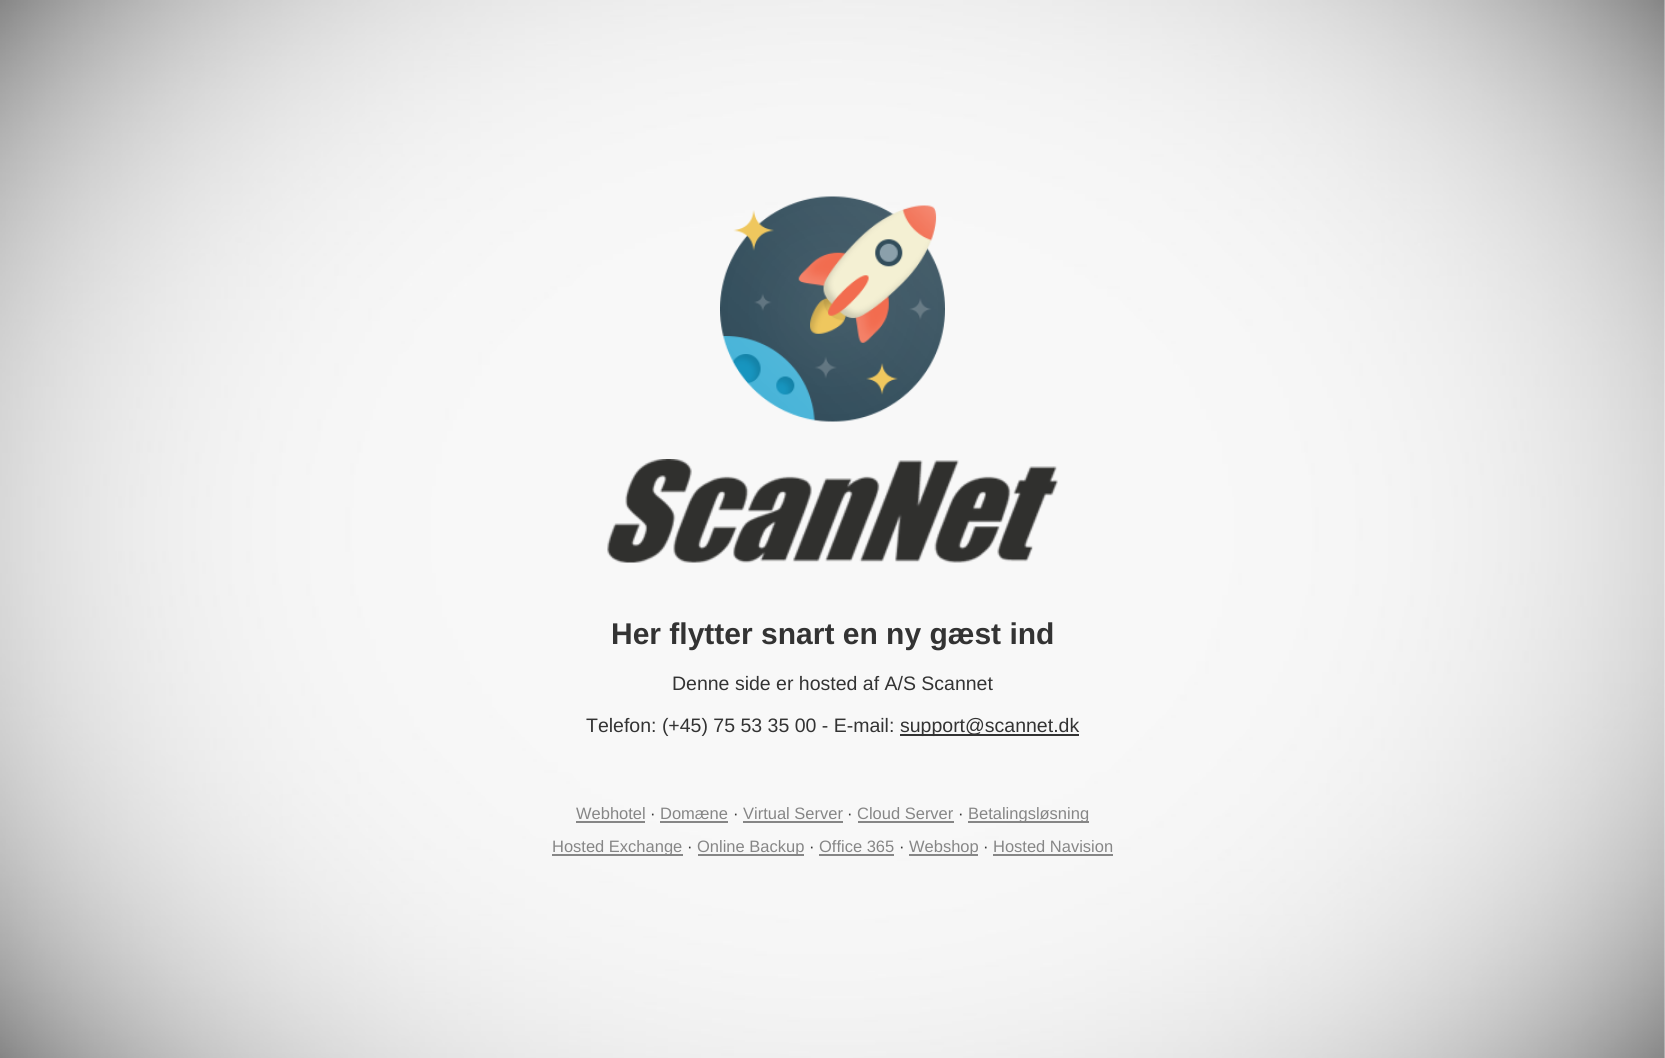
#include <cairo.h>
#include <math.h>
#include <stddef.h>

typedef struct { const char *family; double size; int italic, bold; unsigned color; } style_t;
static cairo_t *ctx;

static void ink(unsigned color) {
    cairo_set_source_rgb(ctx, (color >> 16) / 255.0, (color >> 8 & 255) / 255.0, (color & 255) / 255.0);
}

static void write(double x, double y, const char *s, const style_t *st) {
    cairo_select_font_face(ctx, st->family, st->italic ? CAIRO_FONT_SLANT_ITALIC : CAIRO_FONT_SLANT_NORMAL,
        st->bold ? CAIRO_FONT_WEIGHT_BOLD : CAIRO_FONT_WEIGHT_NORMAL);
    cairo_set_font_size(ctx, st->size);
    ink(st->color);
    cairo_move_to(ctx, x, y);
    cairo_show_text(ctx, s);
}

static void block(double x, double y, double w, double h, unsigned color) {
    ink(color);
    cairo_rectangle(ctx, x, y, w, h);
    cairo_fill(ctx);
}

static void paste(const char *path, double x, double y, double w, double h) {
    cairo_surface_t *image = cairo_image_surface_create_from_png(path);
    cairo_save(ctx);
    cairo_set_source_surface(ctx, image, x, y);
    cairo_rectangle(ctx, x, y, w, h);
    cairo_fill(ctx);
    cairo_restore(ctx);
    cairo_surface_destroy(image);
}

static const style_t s1 = {"Liberation Sans", 30, 0, 1, 0x333333};
static const style_t s2 = {"Liberation Sans", 19.5, 0, 0, 0x333333};
static const style_t s3 = {"Liberation Sans", 16.5, 0, 0, 0x868686};
static const style_t s4 = {"Liberation Sans", 16.5, 0, 0, 0x333333};

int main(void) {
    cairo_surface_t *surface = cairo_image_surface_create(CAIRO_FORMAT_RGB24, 1665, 1058);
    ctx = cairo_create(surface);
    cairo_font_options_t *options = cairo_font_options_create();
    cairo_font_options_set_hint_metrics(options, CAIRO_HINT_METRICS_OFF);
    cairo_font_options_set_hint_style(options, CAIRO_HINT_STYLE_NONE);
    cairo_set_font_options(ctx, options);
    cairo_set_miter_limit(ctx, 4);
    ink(0xffffff);
    cairo_paint(ctx);
    paste("pic1.png", 0, 0, 1665, 1058);
    paste("pic2.png", 720, 196, 225, 226);
    paste("pic3.png", 607, 459, 451, 104);
    write(611, 644, "Her flytter snart en ny gæst ind", &s1);
    write(672, 690, "Denne side er hosted af A/S Scannet", &s2);
    write(586, 732, "Telefon: (+45) 75 53 35 00 - E-mail:", &s2);
    block(900, 734, 179, 2, 0x333333);
    write(900, 732, "support@scannet.dk", &s2);
    write(576, 819, "Webhotel", &s3);
    block(576, 821, 69, 2, 0x868686);
    write(650, 819, "·", &s4);
    write(660, 819, "Domæne", &s3);
    block(660, 821, 68, 2, 0x868686);
    write(733, 819, "·", &s4);
    write(743, 819, "Virtual Server", &s3);
    block(743, 821, 100, 2, 0x868686);
    write(847, 819, "·", &s4);
    write(857, 819, "Cloud Server", &s3);
    block(858, 821, 96, 2, 0x868686);
    write(958, 819, "·", &s4);
    block(968, 821, 121, 2, 0x868686);
    write(968, 819, "Betalingsløsning", &s3);
    block(552, 854, 131, 2, 0x868686);
    write(552, 852, "Hosted Exchange", &s3);
    write(687, 852, "·", &s4);
    block(698, 854, 106, 2, 0x868686);
    write(697, 852, "Online Backup", &s3);
    write(809, 852, "·", &s4);
    write(819, 852, "Office 365", &s3);
    block(819, 854, 75, 2, 0x868686);
    write(899, 852, "·", &s4);
    block(909, 854, 69, 2, 0x868686);
    write(909, 852, "Webshop", &s3);
    write(983, 852, "·", &s4);
    write(993, 852, "Hosted Navision", &s3);
    block(993, 854, 120, 2, 0x868686);
    cairo_surface_write_to_png(surface, "screenshot.png");
    cairo_font_options_destroy(options);
    cairo_destroy(ctx);
    cairo_surface_destroy(surface);
    return 0;
}
